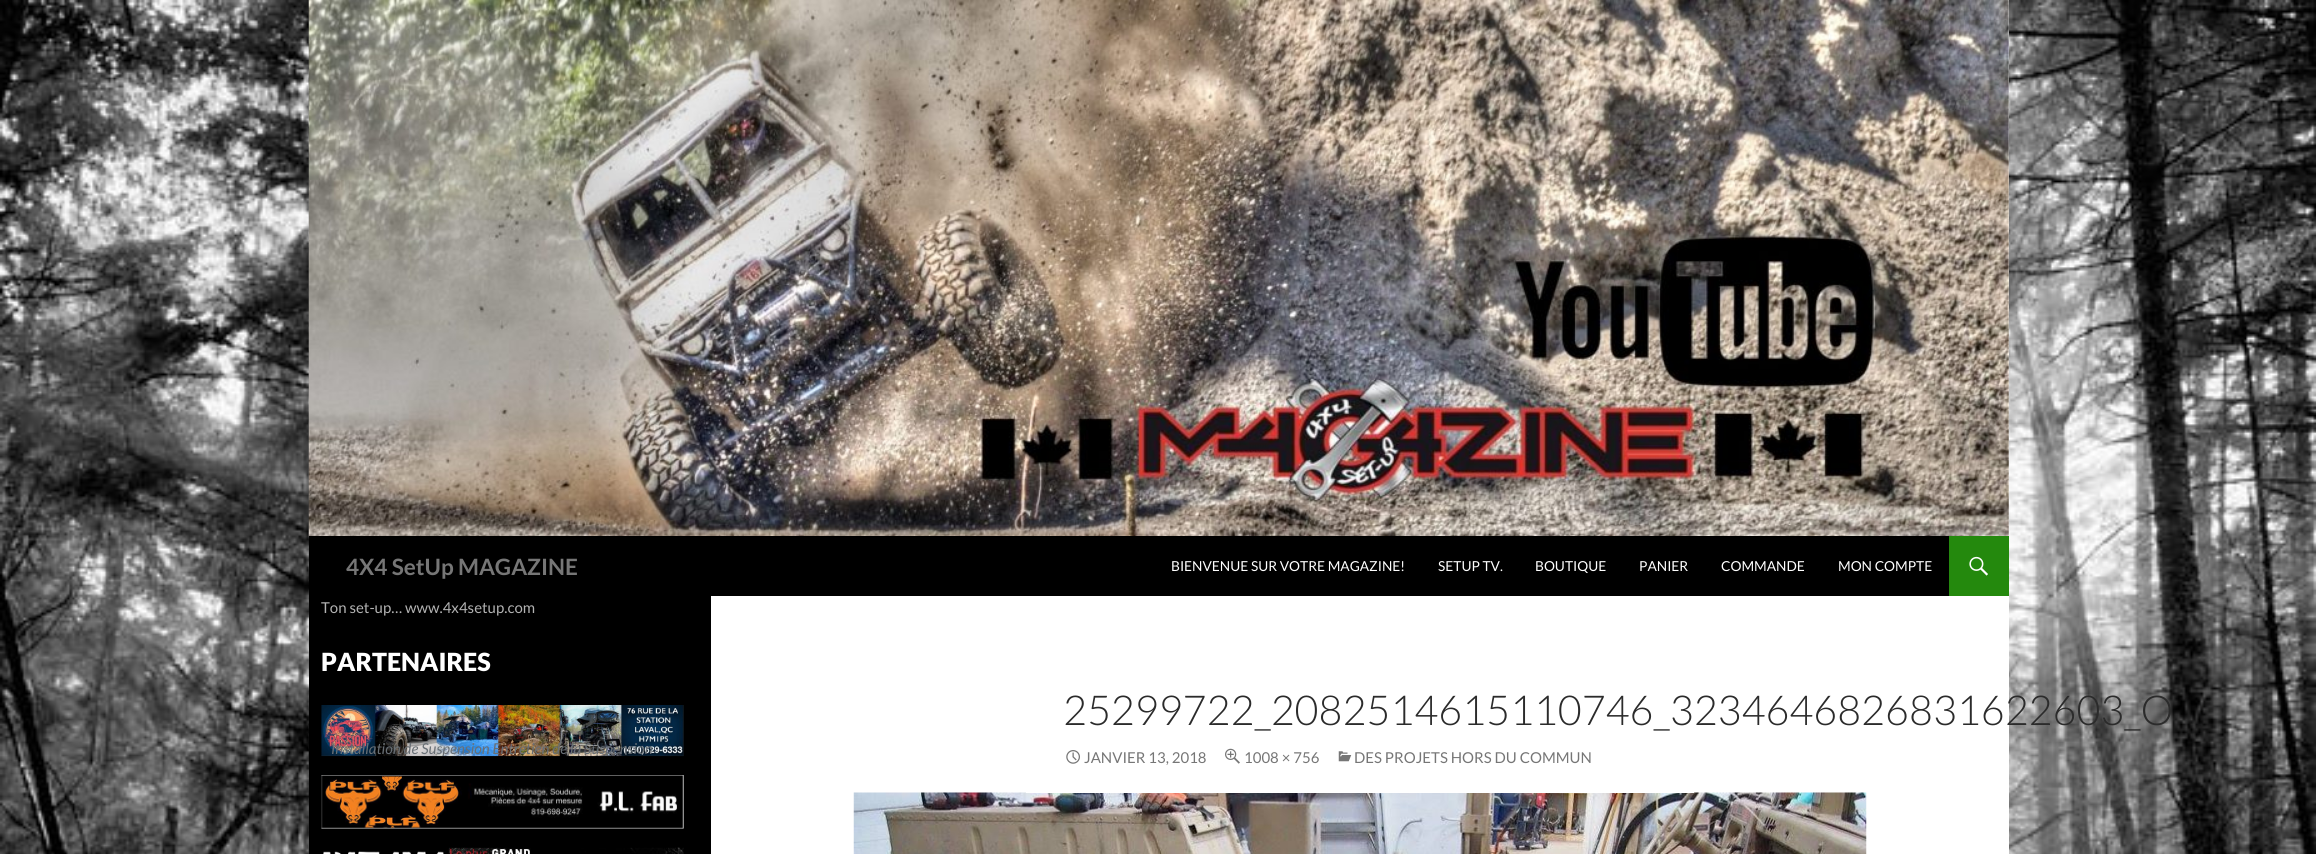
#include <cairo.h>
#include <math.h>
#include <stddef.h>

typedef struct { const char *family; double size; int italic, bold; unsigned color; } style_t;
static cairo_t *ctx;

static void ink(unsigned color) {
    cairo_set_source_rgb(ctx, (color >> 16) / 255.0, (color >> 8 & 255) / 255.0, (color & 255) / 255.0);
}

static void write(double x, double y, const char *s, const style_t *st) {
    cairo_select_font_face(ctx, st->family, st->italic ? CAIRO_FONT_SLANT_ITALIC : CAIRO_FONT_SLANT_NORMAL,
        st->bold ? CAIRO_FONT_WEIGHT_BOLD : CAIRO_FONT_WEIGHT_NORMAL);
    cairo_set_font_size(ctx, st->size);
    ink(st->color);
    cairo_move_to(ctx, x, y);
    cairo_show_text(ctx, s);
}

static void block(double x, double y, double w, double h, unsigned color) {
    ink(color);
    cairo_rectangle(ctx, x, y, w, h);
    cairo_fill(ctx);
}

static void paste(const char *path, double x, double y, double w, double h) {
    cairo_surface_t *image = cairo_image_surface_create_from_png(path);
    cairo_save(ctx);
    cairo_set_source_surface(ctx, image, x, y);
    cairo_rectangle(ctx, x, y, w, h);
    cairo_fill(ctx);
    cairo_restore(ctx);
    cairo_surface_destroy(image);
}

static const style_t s1 = {"Lato", 22.5, 0, 1, 0x767676};
static const style_t s2 = {"Lato", 13.75, 0, 0, 0xffffff};
static const style_t s3 = {"Lato", 15, 0, 0, 0xb3b3b3};
static const style_t s4 = {"Lato Black", 25, 0, 0, 0xffffff};
static const style_t s5 = {"Lato", 15, 1, 0, 0x686f75};
static const style_t s6 = {"Lato Light", 41.25, 0, 0, 0x2b2b2b};
static const style_t s7 = {"Lato", 15, 0, 0, 0x767676};

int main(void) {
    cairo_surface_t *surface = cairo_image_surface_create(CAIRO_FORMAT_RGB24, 2316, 854);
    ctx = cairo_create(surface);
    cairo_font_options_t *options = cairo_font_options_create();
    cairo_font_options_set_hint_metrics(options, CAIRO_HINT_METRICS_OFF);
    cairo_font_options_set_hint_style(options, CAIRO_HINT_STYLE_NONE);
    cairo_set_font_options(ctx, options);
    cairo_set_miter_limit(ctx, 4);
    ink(0xffffff);
    cairo_paint(ctx);
    paste("pic1.png", 0, 0, 2316, 854);
    block(711, 0, 1298, 854, 0xffffff);
    paste("pic2.png", 308, 0, 1701, 537);
    block(309, 536, 1640, 60, 0x000000);
    write(346, 575, "4X4 SetUp MAGAZINE", &s1);
    write(1171, 571, "BIENVENUE SUR VOTRE MAGAZINE!", &s2);
    write(1438, 571, "SETUP TV.", &s2);
    write(1535, 571, "BOUTIQUE", &s2);
    write(1639, 571, "PANIER", &s2);
    write(1721, 571, "COMMANDE", &s2);
    write(1838, 571, "MON COMPTE", &s2);
    block(1949, 536, 60, 60, 0x24890d);
    paste("pic3.png", 1969, 556, 19, 20);
    block(309, 596, 402, 258, 0x000000);
    write(321, 613, "Ton set-up… www.4x4setup.com", &s3);
    write(321, 671, "PARTENAIRES", &s4);
    paste("pic4.png", 321, 705, 363, 52);
    cairo_save(ctx);
    cairo_rectangle(ctx, 321, 705, 363, 51);
    cairo_clip(ctx);
    write(331, 754, "Installation de Suspension Entretien de la Suspension", &s5);
    cairo_restore(ctx);
    paste("pic5.png", 321, 775, 363, 54);
    paste("pic6.png", 323, 847, 361, 7);
    paste("pic10.png", 853, 792, 1014, 62);
    block(1026, 792, 668, 1, 0xffffff);
    write(1063, 725, "25299722_2082514615110746_3234646826831622603_O", &s6);
    paste("pic7.png", 1066, 750, 14, 14);
    write(1084, 763, "JANVIER 13, 2018", &s7);
    paste("pic8.png", 1225, 748, 15, 16);
    write(1244, 763, "1008 × 756", &s7);
    paste("pic9.png", 1338, 751, 14, 11);
    write(1354, 763, "DES PROJETS HORS DU COMMUN", &s7);
    cairo_surface_write_to_png(surface, "screenshot.png");
    cairo_font_options_destroy(options);
    cairo_destroy(ctx);
    cairo_surface_destroy(surface);
    return 0;
}
